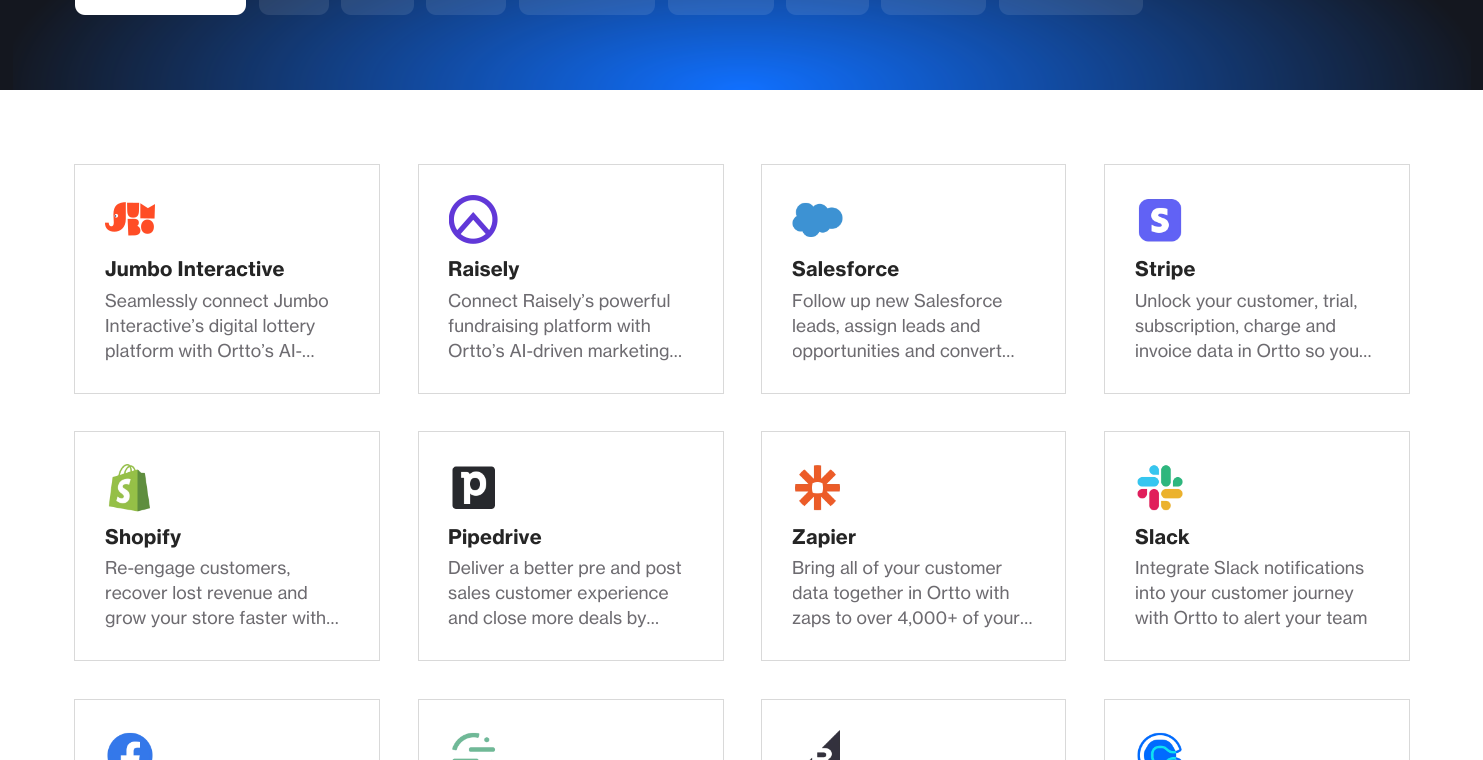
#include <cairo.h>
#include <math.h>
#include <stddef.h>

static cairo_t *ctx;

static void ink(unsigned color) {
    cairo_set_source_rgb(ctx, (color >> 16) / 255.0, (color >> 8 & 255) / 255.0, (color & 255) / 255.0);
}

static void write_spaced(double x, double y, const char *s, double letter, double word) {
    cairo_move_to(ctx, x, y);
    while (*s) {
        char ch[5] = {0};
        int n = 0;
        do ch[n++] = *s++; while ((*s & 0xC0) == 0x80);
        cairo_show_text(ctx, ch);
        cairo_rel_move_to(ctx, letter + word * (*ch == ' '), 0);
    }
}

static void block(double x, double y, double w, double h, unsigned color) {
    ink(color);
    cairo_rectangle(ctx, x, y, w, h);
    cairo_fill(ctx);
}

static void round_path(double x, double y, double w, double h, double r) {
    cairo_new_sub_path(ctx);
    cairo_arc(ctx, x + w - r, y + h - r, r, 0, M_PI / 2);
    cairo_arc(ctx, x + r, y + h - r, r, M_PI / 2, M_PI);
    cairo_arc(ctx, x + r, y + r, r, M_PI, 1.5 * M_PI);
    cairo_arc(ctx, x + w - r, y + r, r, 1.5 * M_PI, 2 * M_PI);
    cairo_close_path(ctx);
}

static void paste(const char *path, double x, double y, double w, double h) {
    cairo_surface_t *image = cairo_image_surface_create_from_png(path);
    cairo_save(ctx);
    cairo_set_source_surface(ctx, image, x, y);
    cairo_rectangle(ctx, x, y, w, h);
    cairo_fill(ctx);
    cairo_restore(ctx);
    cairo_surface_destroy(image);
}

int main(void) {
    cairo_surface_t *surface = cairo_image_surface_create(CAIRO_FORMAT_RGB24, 1483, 760);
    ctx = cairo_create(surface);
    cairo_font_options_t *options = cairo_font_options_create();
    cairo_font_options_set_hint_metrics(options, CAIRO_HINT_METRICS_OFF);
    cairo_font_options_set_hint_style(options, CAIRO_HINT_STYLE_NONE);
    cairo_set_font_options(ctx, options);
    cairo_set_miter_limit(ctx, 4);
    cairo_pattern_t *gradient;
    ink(0x14171f);
    cairo_paint(ctx);
    gradient = cairo_pattern_create_radial(0, 0, 0, 0, 0, 1);
    cairo_pattern_set_matrix(gradient, &(cairo_matrix_t){1.0 / 742, 0, 0, 1.0 / 250, -1.0 * 742 / 742, -1.0 * 90 / 250});
    cairo_pattern_add_color_stop_rgba(gradient, 0, 0.063, 0.439, 1, 1);
    cairo_pattern_add_color_stop_rgba(gradient, 1, 0.063, 0.439, 1, 0);
    cairo_set_source(ctx, gradient);
    cairo_pattern_destroy(gradient);
    cairo_rectangle(ctx, 13, 0, 1458, 90);
    cairo_fill(ctx);
    ink(0xffffff);
    round_path(75, -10, 171, 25, 10);
    cairo_fill(ctx);
    cairo_set_source_rgba(ctx, 1, 1, 1, 0.1);
    round_path(259, -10, 70, 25, 10);
    cairo_fill(ctx);
    round_path(341, -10, 73, 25, 10);
    cairo_fill(ctx);
    round_path(426, -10, 80, 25, 10);
    cairo_fill(ctx);
    round_path(519, -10, 136, 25, 10);
    cairo_fill(ctx);
    round_path(668, -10, 106, 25, 10);
    cairo_fill(ctx);
    round_path(786, -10, 83, 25, 10);
    cairo_fill(ctx);
    round_path(881, -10, 105, 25, 10);
    cairo_fill(ctx);
    round_path(999, -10, 144, 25, 10);
    cairo_fill(ctx);
    block(0, 90, 1483, 670, 0xffffff);
    cairo_rectangle(ctx, 74.5, 164.5, 305, 229);
    ink(0xd9d9d9);
    cairo_set_line_width(ctx, 1);
    cairo_stroke(ctx);
    paste("pic1.png", 105, 202, 50, 34);
    cairo_select_font_face(ctx, "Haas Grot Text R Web", CAIRO_FONT_SLANT_NORMAL, CAIRO_FONT_WEIGHT_BOLD);
    cairo_set_font_size(ctx, 20);
    ink(0x252525);
    write_spaced(105, 276, "Jumbo Interactive", 0.2, 0);
    cairo_select_font_face(ctx, "Haas Grot Text R Web", CAIRO_FONT_SLANT_NORMAL, CAIRO_FONT_WEIGHT_NORMAL);
    cairo_set_font_size(ctx, 17.5);
    ink(0x6d6b70);
    write_spaced(105, 307, "Seamlessly connect Jumbo", 0.05, 0);
    write_spaced(105, 332, "Interactive’s digital lottery", 0.05, 0);
    write_spaced(105, 357, "platform with Ortto’s AI-…", 0.05, 0);
    cairo_rectangle(ctx, 418.5, 164.5, 305, 229);
    ink(0xd9d9d9);
    cairo_stroke(ctx);
    paste("pic2.png", 449, 195, 49, 49);
    cairo_select_font_face(ctx, "Haas Grot Text R Web", CAIRO_FONT_SLANT_NORMAL, CAIRO_FONT_WEIGHT_BOLD);
    cairo_set_font_size(ctx, 20);
    ink(0x252525);
    write_spaced(448, 276, "Raisely", 0.2, 0);
    cairo_select_font_face(ctx, "Haas Grot Text R Web", CAIRO_FONT_SLANT_NORMAL, CAIRO_FONT_WEIGHT_NORMAL);
    cairo_set_font_size(ctx, 17.5);
    ink(0x6d6b70);
    write_spaced(448, 307, "Connect Raisely’s powerful", 0.05, 0);
    write_spaced(448, 332, "fundraising platform with", 0.05, 0);
    write_spaced(448, 357, "Ortto’s AI-driven marketing…", 0.05, 0);
    cairo_rectangle(ctx, 761.5, 164.5, 304, 229);
    ink(0xd9d9d9);
    cairo_stroke(ctx);
    paste("pic3.png", 792, 202, 51, 35);
    cairo_select_font_face(ctx, "Haas Grot Text R Web", CAIRO_FONT_SLANT_NORMAL, CAIRO_FONT_WEIGHT_BOLD);
    cairo_set_font_size(ctx, 20);
    ink(0x252525);
    write_spaced(792, 276, "Salesforce", 0.2, 0);
    cairo_select_font_face(ctx, "Haas Grot Text R Web", CAIRO_FONT_SLANT_NORMAL, CAIRO_FONT_WEIGHT_NORMAL);
    cairo_set_font_size(ctx, 17.5);
    ink(0x6d6b70);
    write_spaced(792, 307, "Follow up new Salesforce", 0.05, 0);
    write_spaced(792, 332, "leads, assign leads and", 0.05, 0);
    cairo_save(ctx);
    cairo_rectangle(ctx, 793, 289, 242, 75);
    cairo_clip(ctx);
    write_spaced(792, 357, "opportunities and convert…", 0.05, 0);
    cairo_restore(ctx);
    cairo_rectangle(ctx, 1104.5, 164.5, 305, 229);
    ink(0xd9d9d9);
    cairo_stroke(ctx);
    paste("pic4.png", 1138, 199, 44, 43);
    cairo_select_font_face(ctx, "Haas Grot Text R Web", CAIRO_FONT_SLANT_NORMAL, CAIRO_FONT_WEIGHT_BOLD);
    cairo_set_font_size(ctx, 20);
    ink(0x252525);
    write_spaced(1135, 276, "Stripe", 0.2, 0);
    cairo_select_font_face(ctx, "Haas Grot Text R Web", CAIRO_FONT_SLANT_NORMAL, CAIRO_FONT_WEIGHT_NORMAL);
    cairo_set_font_size(ctx, 17.5);
    ink(0x6d6b70);
    write_spaced(1135, 307, "Unlock your customer, trial,", 0.05, 0);
    write_spaced(1135, 332, "subscription, charge and", 0.05, 0);
    write_spaced(1135, 357, "invoice data in Ortto so you…", 0.05, 0);
    cairo_rectangle(ctx, 74.5, 431.5, 305, 229);
    ink(0xd9d9d9);
    cairo_stroke(ctx);
    paste("pic5.png", 108, 464, 42, 48);
    cairo_select_font_face(ctx, "Haas Grot Text R Web", CAIRO_FONT_SLANT_NORMAL, CAIRO_FONT_WEIGHT_BOLD);
    cairo_set_font_size(ctx, 20);
    ink(0x252525);
    write_spaced(105, 544, "Shopify", 0.2, 0);
    cairo_select_font_face(ctx, "Haas Grot Text R Web", CAIRO_FONT_SLANT_NORMAL, CAIRO_FONT_WEIGHT_NORMAL);
    cairo_set_font_size(ctx, 17.5);
    ink(0x6d6b70);
    write_spaced(105, 574, "Re-engage customers,", 0.05, 0);
    write_spaced(105, 599, "recover lost revenue and", 0.05, 0);
    write_spaced(105, 624, "grow your store faster with…", 0.05, 0);
    cairo_rectangle(ctx, 418.5, 431.5, 305, 229);
    ink(0xd9d9d9);
    cairo_stroke(ctx);
    paste("pic6.png", 452, 466, 43, 43);
    cairo_select_font_face(ctx, "Haas Grot Text R Web", CAIRO_FONT_SLANT_NORMAL, CAIRO_FONT_WEIGHT_BOLD);
    cairo_set_font_size(ctx, 20);
    ink(0x252525);
    write_spaced(448, 544, "Pipedrive", 0.2, 0);
    cairo_select_font_face(ctx, "Haas Grot Text R Web", CAIRO_FONT_SLANT_NORMAL, CAIRO_FONT_WEIGHT_NORMAL);
    cairo_set_font_size(ctx, 17.5);
    ink(0x6d6b70);
    write_spaced(448, 574, "Deliver a better pre and post", 0.05, 0);
    write_spaced(448, 599, "sales customer experience", 0.05, 0);
    write_spaced(448, 624, "and close more deals by…", 0.05, 0);
    cairo_rectangle(ctx, 761.5, 431.5, 304, 229);
    ink(0xd9d9d9);
    cairo_stroke(ctx);
    paste("pic7.png", 795, 465, 45, 46);
    cairo_select_font_face(ctx, "Haas Grot Text R Web", CAIRO_FONT_SLANT_NORMAL, CAIRO_FONT_WEIGHT_BOLD);
    cairo_set_font_size(ctx, 20);
    ink(0x252525);
    write_spaced(792, 544, "Zapier", 0.2, 0);
    cairo_select_font_face(ctx, "Haas Grot Text R Web", CAIRO_FONT_SLANT_NORMAL, CAIRO_FONT_WEIGHT_NORMAL);
    cairo_set_font_size(ctx, 17.5);
    ink(0x6d6b70);
    write_spaced(792, 574, "Bring all of your customer", 0.05, 0);
    cairo_save(ctx);
    cairo_rectangle(ctx, 793, 556, 242, 75);
    cairo_clip(ctx);
    write_spaced(792, 599, "data together in Ortto with", 0.05, 0);
    cairo_restore(ctx);
    write_spaced(792, 624, "zaps to over 4,000+ of your…", 0.05, 0);
    cairo_rectangle(ctx, 1104.5, 431.5, 305, 229);
    ink(0xd9d9d9);
    cairo_stroke(ctx);
    paste("pic8.png", 1137, 465, 46, 46);
    cairo_select_font_face(ctx, "Haas Grot Text R Web", CAIRO_FONT_SLANT_NORMAL, CAIRO_FONT_WEIGHT_BOLD);
    cairo_set_font_size(ctx, 20);
    ink(0x252525);
    write_spaced(1135, 544, "Slack", 0.2, 0);
    cairo_select_font_face(ctx, "Haas Grot Text R Web", CAIRO_FONT_SLANT_NORMAL, CAIRO_FONT_WEIGHT_NORMAL);
    cairo_set_font_size(ctx, 17.5);
    ink(0x6d6b70);
    write_spaced(1135, 574, "Integrate Slack notifications", 0.05, 0);
    write_spaced(1135, 599, "into your customer journey", 0.05, 0);
    write_spaced(1135, 624, "with Ortto to alert your team", 0.05, 0);
    cairo_rectangle(ctx, 74.5, 699.5, 305, 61);
    ink(0xd9d9d9);
    cairo_stroke(ctx);
    paste("pic9.png", 107, 732, 46, 28);
    cairo_rectangle(ctx, 418.5, 699.5, 305, 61);
    cairo_stroke(ctx);
    paste("pic10.png", 452, 732, 44, 28);
    cairo_rectangle(ctx, 761.5, 699.5, 304, 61);
    cairo_stroke(ctx);
    paste("pic11.png", 809, 730, 31, 30);
    cairo_rectangle(ctx, 1104.5, 699.5, 305, 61);
    cairo_stroke(ctx);
    paste("pic12.png", 1137, 732, 45, 28);
    cairo_surface_write_to_png(surface, "screenshot.png");
    cairo_font_options_destroy(options);
    cairo_destroy(ctx);
    cairo_surface_destroy(surface);
    return 0;
}
